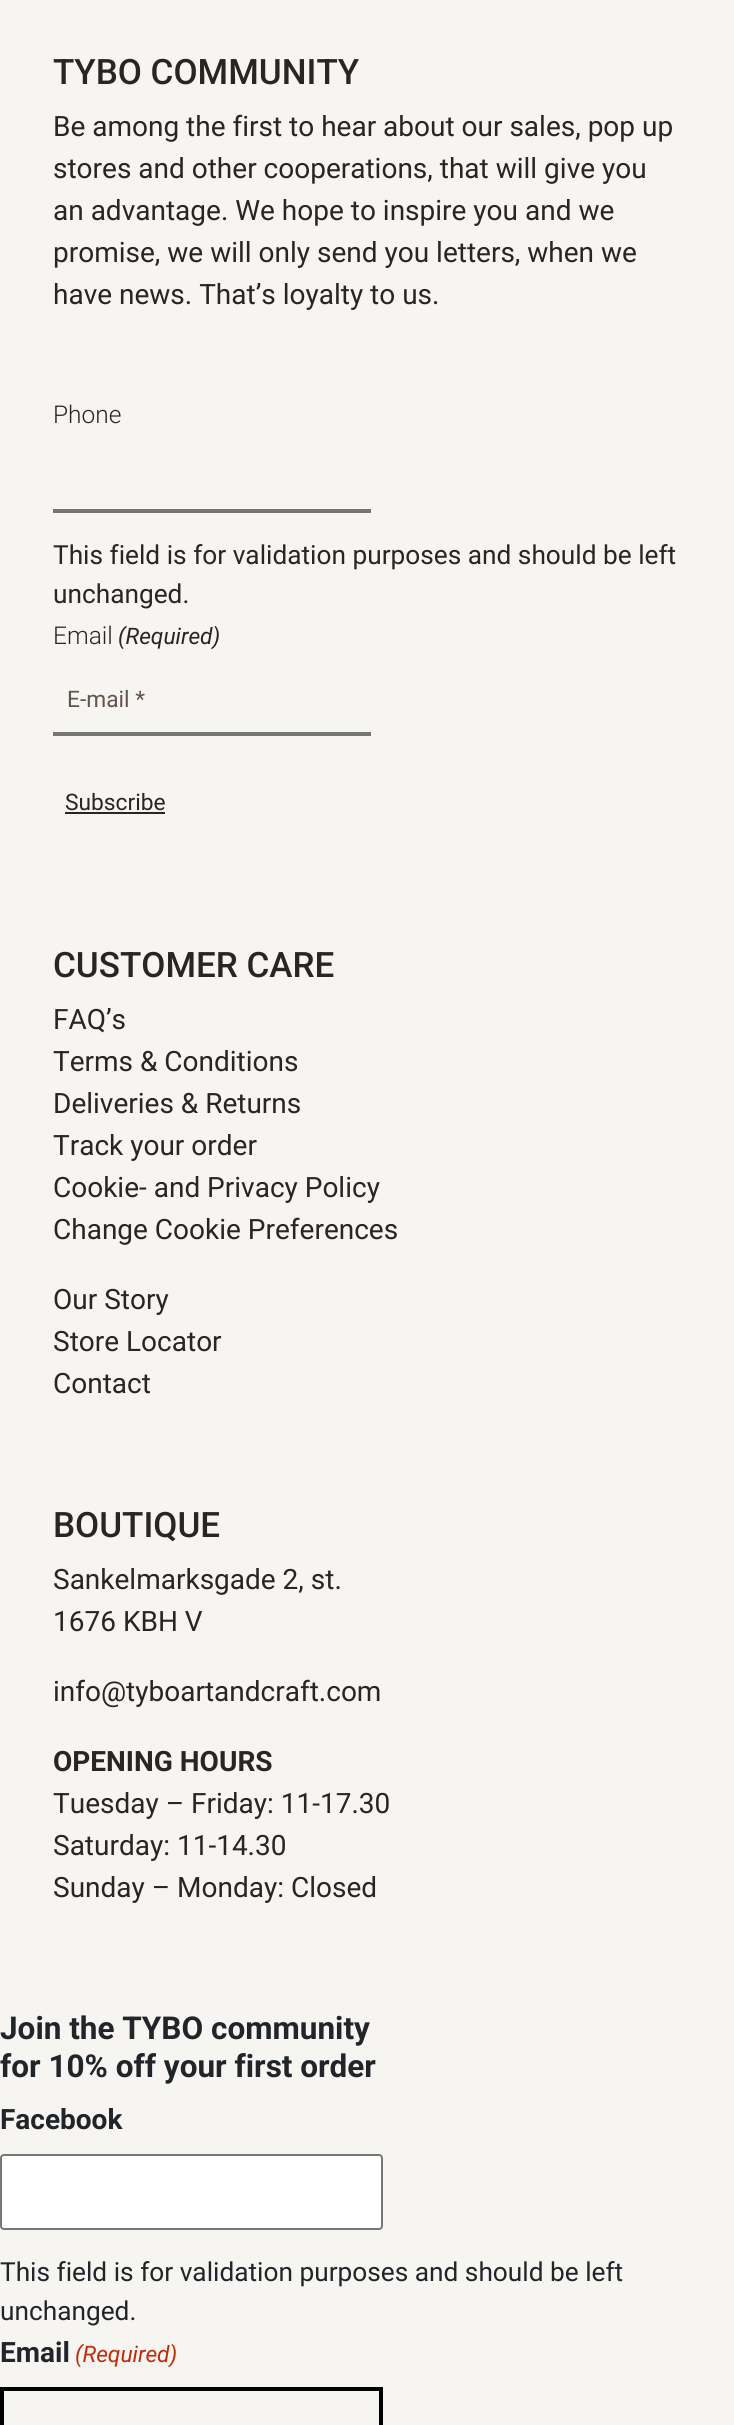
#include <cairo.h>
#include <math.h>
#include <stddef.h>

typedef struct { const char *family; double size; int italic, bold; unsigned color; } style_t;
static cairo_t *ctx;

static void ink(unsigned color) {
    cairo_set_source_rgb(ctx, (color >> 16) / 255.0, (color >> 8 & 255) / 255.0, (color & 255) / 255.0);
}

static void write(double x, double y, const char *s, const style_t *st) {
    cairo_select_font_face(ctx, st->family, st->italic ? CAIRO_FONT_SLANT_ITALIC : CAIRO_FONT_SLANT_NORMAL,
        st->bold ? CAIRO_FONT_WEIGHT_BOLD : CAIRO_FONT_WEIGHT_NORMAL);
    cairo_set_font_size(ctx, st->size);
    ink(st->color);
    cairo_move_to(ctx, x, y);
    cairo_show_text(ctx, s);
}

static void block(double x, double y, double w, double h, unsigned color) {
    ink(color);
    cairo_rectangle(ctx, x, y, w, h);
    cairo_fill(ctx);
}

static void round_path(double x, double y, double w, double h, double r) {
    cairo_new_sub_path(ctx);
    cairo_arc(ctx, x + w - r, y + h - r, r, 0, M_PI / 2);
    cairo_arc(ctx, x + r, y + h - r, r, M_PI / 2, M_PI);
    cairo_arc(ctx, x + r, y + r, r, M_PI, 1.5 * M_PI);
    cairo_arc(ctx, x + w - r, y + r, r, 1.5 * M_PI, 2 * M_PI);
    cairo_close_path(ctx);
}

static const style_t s1 = {"Roboto Medium", 35, 0, 0, 0x282623};
static const style_t s2 = {"Roboto", 28, 0, 0, 0x282623};
static const style_t s3 = {"Roboto Light", 24.5, 0, 0, 0x282623};
static const style_t s4 = {"Roboto", 26.25, 0, 0, 0x282623};
static const style_t s5 = {"Roboto", 22.75, 1, 0, 0x282623};
static const style_t s6 = {"Roboto", 22.75, 0, 0, 0x62544a};
static const style_t s7 = {"Roboto", 22.75, 0, 0, 0x282623};
static const style_t s8 = {"Roboto", 28, 0, 1, 0x282623};
static const style_t s9 = {"Roboto", 31.5, 0, 1, 0x212529};
static const style_t s10 = {"Roboto", 28, 0, 1, 0x212529};
static const style_t s11 = {"Roboto", 26.25, 0, 0, 0x212529};
static const style_t s12 = {"Roboto", 22.75, 1, 0, 0xc02b0a};

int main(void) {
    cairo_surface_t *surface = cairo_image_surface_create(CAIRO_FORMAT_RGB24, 734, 2425);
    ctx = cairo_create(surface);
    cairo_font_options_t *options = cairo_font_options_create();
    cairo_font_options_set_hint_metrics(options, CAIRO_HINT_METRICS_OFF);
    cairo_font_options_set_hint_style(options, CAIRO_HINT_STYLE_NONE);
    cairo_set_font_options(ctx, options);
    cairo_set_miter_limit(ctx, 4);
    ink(0xf6f5f2);
    cairo_paint(ctx);
    write(53, 84, "TYBO COMMUNITY", &s1);
    write(53, 136, "Be among the first to hear about our sales, pop up", &s2);
    write(53, 178, "stores and other cooperations, that will give you", &s2);
    write(53, 220, "an advantage. We hope to inspire you and we", &s2);
    write(53, 262, "promise, we will only send you letters, when we", &s2);
    write(53, 304, "have news. That’s loyalty to us.", &s2);
    write(53, 423, "Phone", &s3);
    block(53, 509, 318, 4, 0x767676);
    write(53, 564, "This field is for validation purposes and should be left", &s4);
    write(53, 603, "unchanged.", &s4);
    write(53, 644, "Email", &s3);
    write(118, 644, "(Required)", &s5);
    block(53, 732, 318, 4, 0x767676);
    write(67, 707, "E-mail *", &s6);
    write(65, 810, "Subscribe", &s7);
    block(65, 812, 100, 2, 0x282623);
    write(53, 977, "CUSTOMER CARE", &s1);
    write(53, 1029, "FAQ’s", &s2);
    write(53, 1071, "Terms & Conditions", &s2);
    write(53, 1113, "Deliveries & Returns", &s2);
    write(53, 1155, "Track your order", &s2);
    write(53, 1197, "Cookie- and Privacy Policy", &s2);
    write(53, 1239, "Change Cookie Preferences", &s2);
    write(53, 1309, "Our Story", &s2);
    write(53, 1351, "Store Locator", &s2);
    write(53, 1393, "Contact", &s2);
    write(53, 1537, "BOUTIQUE", &s1);
    write(53, 1589, "Sankelmarksgade 2, st.", &s2);
    write(53, 1631, "1676 KBH V", &s2);
    write(53, 1701, "info@tyboartandcraft.com", &s2);
    write(53, 1771, "OPENING HOURS", &s8);
    write(53, 1813, "Tuesday – Friday: 11-17.30", &s2);
    write(53, 1855, "Saturday: 11-14.30", &s2);
    write(53, 1897, "Sunday – Monday: Closed", &s2);
    write(0, 2039, "Join the TYBO community", &s9);
    write(0, 2077, "for 10% off your first order", &s9);
    write(0, 2129, "Facebook", &s10);
    ink(0xffffff);
    round_path(1, 2155, 381, 74, 3);
    cairo_fill_preserve(ctx);
    ink(0x767676);
    cairo_stroke(ctx);
    write(0, 2281, "This field is for validation purposes and should be left", &s11);
    write(0, 2320, "unchanged.", &s11);
    write(0, 2362, "Email", &s10);
    write(75, 2362, "(Required)", &s12);
    cairo_rectangle(ctx, 2, 2389, 379, 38);
    ink(0x000000);
    cairo_set_line_width(ctx, 4);
    cairo_stroke(ctx);
    cairo_surface_write_to_png(surface, "screenshot.png");
    cairo_font_options_destroy(options);
    cairo_destroy(ctx);
    cairo_surface_destroy(surface);
    return 0;
}
